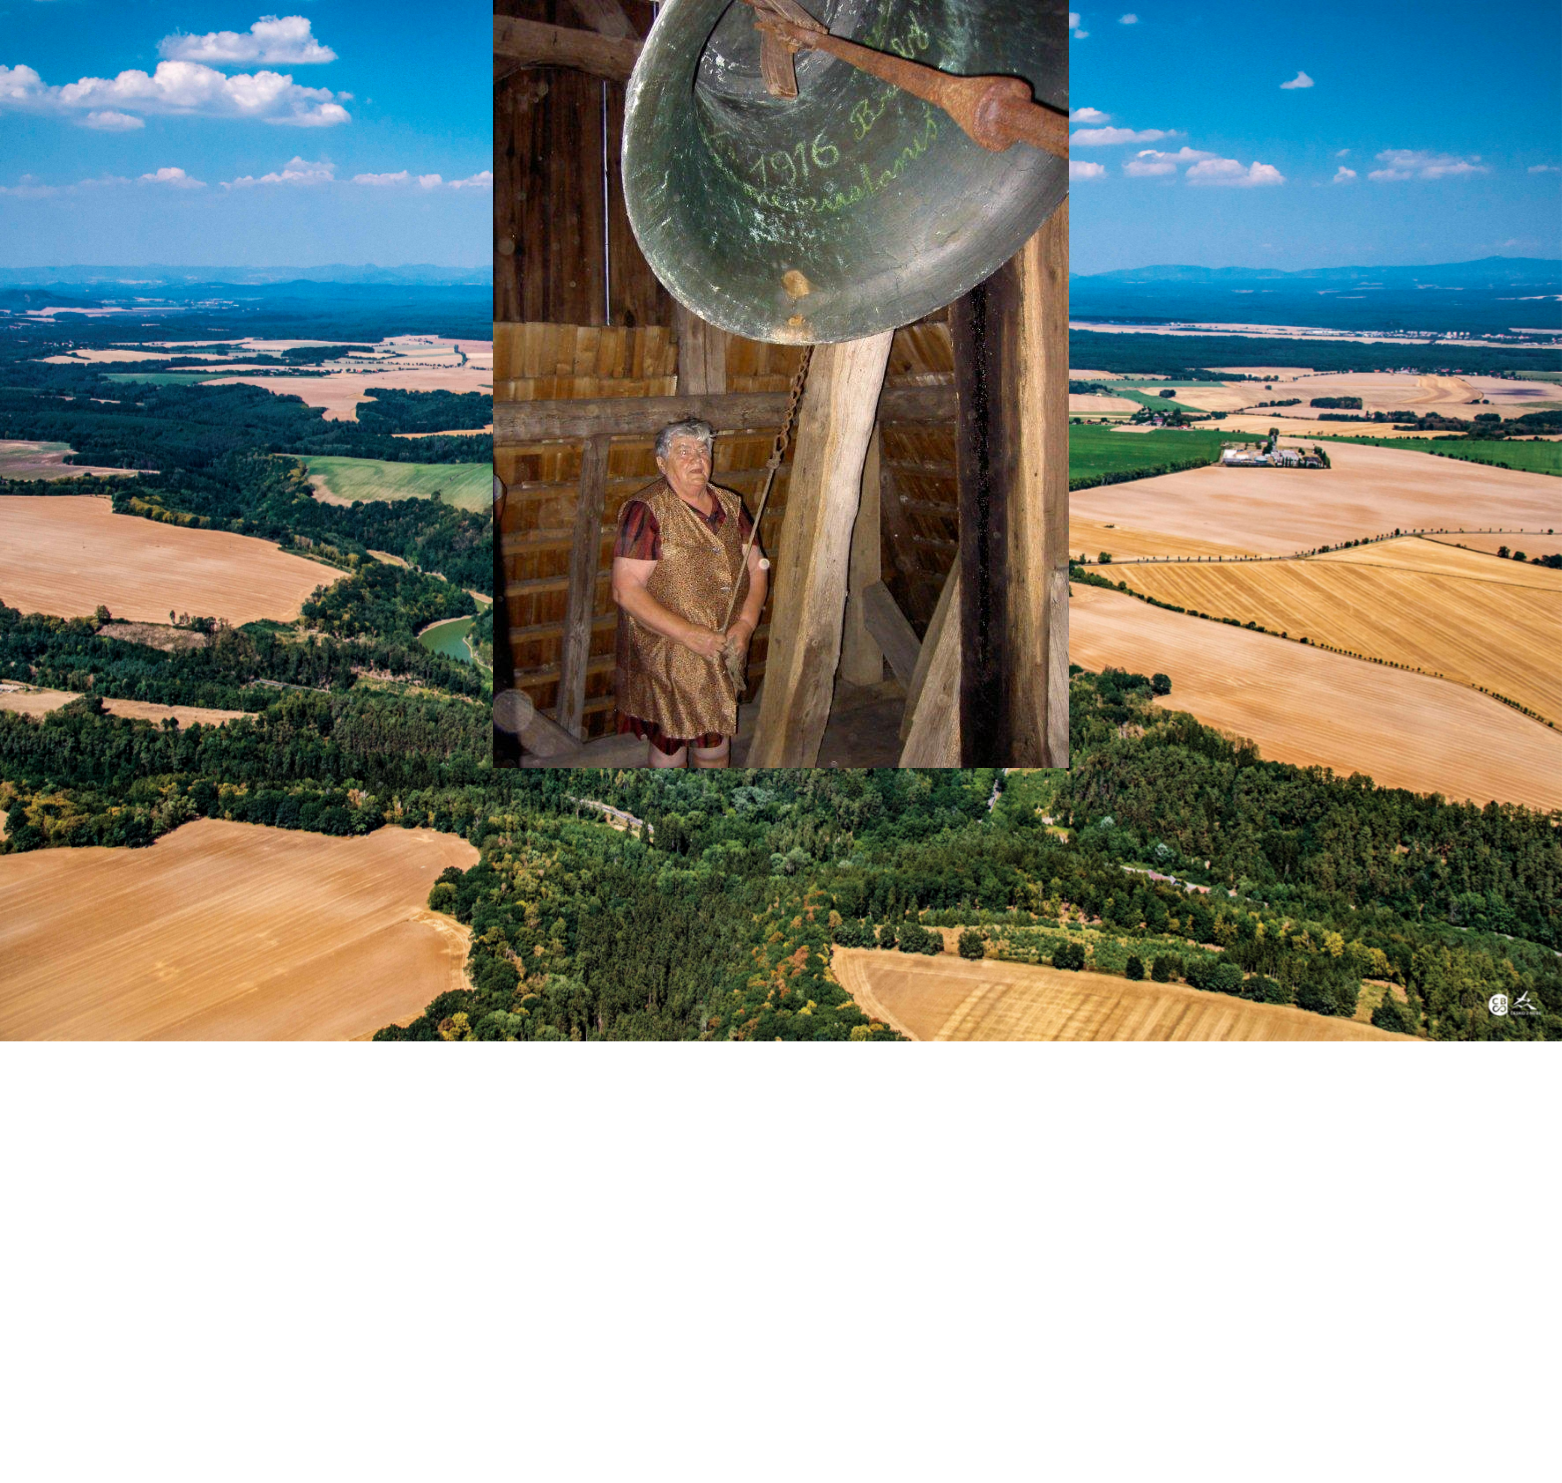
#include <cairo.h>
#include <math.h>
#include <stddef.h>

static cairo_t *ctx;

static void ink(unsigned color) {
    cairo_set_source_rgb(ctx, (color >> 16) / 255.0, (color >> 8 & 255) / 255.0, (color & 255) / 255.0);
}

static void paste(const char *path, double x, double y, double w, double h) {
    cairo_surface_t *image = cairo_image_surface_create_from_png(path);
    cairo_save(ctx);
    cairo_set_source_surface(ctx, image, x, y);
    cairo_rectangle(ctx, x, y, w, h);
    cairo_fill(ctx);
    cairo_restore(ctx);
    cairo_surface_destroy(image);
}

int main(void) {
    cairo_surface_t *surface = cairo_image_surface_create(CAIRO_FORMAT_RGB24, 1562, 1483);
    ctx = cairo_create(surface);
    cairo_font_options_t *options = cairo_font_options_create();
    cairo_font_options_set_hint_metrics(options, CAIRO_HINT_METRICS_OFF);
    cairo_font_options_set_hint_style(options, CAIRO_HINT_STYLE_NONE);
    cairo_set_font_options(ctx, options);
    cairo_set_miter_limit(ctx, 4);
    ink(0xffffff);
    cairo_paint(ctx);
    paste("pic1.png", 0, 0, 1562, 1042);
    paste("pic2.png", 0, 0, 1562, 1042);
    paste("pic3.png", 493, 0, 576, 768);
    cairo_surface_write_to_png(surface, "screenshot.png");
    cairo_font_options_destroy(options);
    cairo_destroy(ctx);
    cairo_surface_destroy(surface);
    return 0;
}
